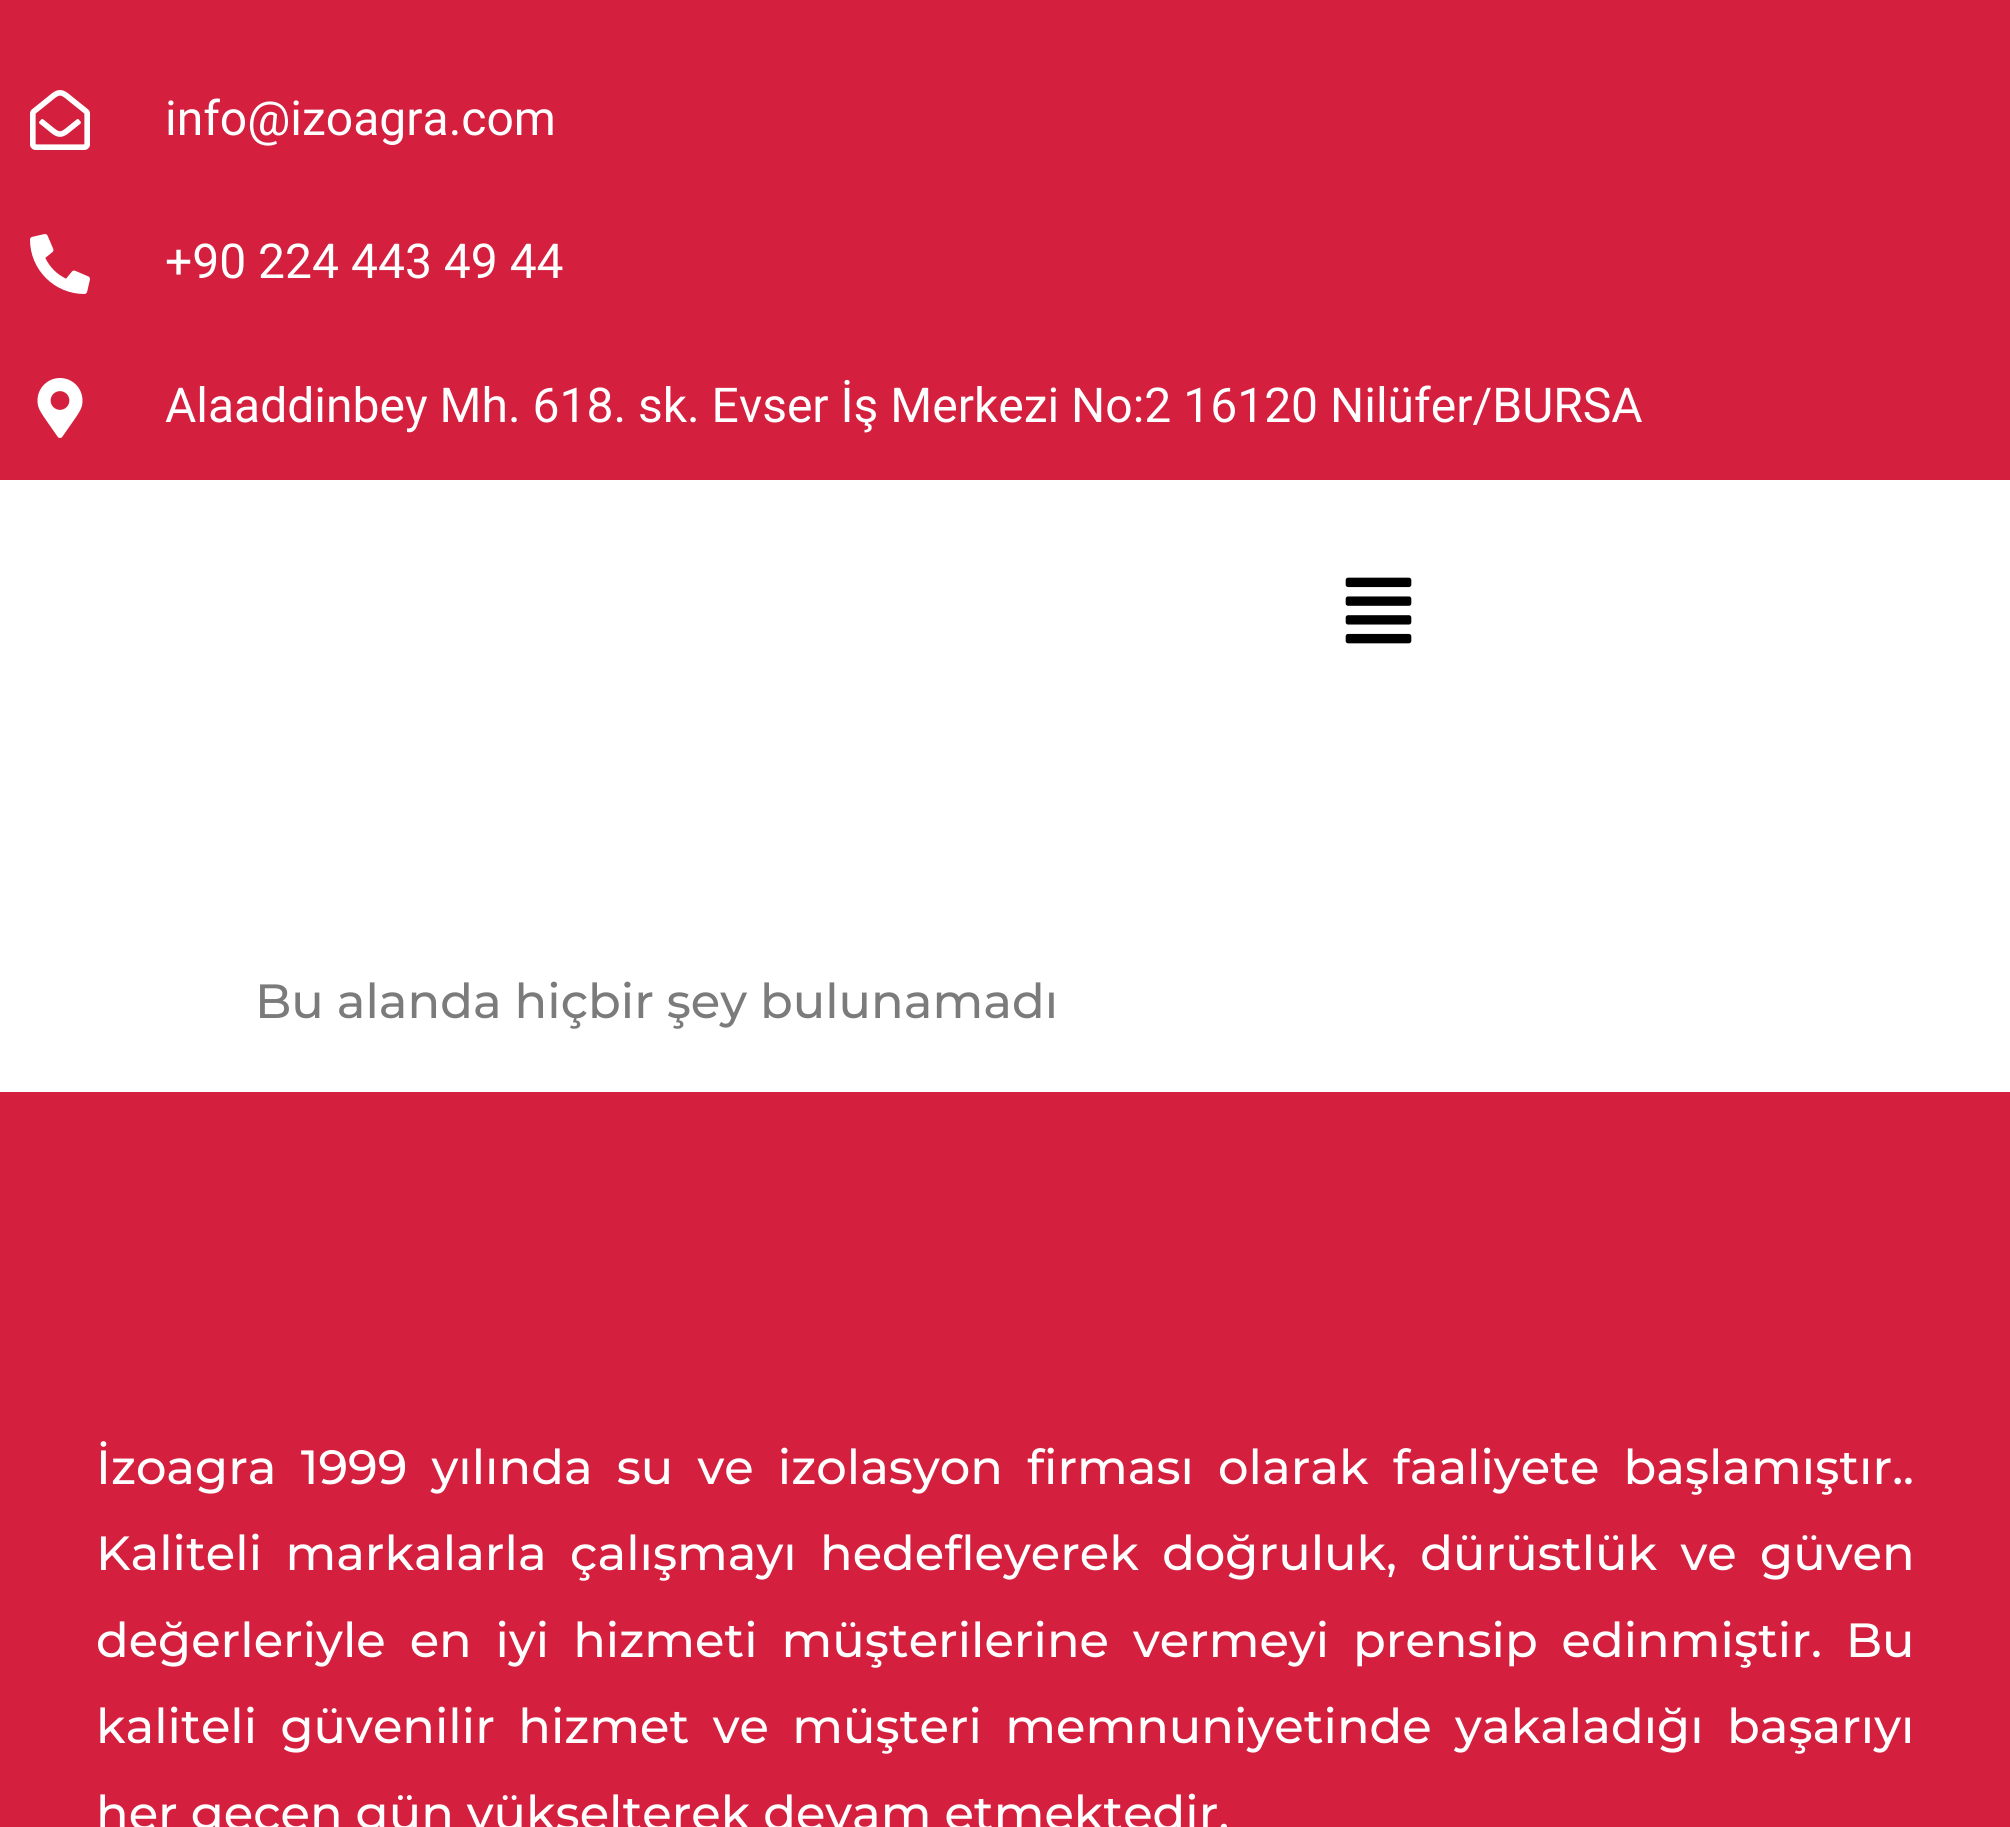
#include <cairo.h>
#include <math.h>
#include <stddef.h>

typedef struct { const char *family; double size; int italic, bold; unsigned color; } style_t;
static cairo_t *ctx;

static void ink(unsigned color) {
    cairo_set_source_rgb(ctx, (color >> 16) / 255.0, (color >> 8 & 255) / 255.0, (color & 255) / 255.0);
}

static void write(double x, double y, const char *s, const style_t *st) {
    cairo_select_font_face(ctx, st->family, st->italic ? CAIRO_FONT_SLANT_ITALIC : CAIRO_FONT_SLANT_NORMAL,
        st->bold ? CAIRO_FONT_WEIGHT_BOLD : CAIRO_FONT_WEIGHT_NORMAL);
    cairo_set_font_size(ctx, st->size);
    ink(st->color);
    cairo_move_to(ctx, x, y);
    cairo_show_text(ctx, s);
}

static void write_spaced(double x, double y, const char *s, double letter, double word) {
    cairo_move_to(ctx, x, y);
    while (*s) {
        char ch[5] = {0};
        int n = 0;
        do ch[n++] = *s++; while ((*s & 0xC0) == 0x80);
        cairo_show_text(ctx, ch);
        cairo_rel_move_to(ctx, letter + word * (*ch == ' '), 0);
    }
}

static void block(double x, double y, double w, double h, unsigned color) {
    ink(color);
    cairo_rectangle(ctx, x, y, w, h);
    cairo_fill(ctx);
}

static void paste(const char *path, double x, double y, double w, double h) {
    cairo_surface_t *image = cairo_image_surface_create_from_png(path);
    cairo_save(ctx);
    cairo_set_source_surface(ctx, image, x, y);
    cairo_rectangle(ctx, x, y, w, h);
    cairo_fill(ctx);
    cairo_restore(ctx);
    cairo_surface_destroy(image);
}

static const style_t s1 = {"Roboto", 48, 0, 0, 0xffffff};
static const style_t s2 = {"Montserrat Medium", 48, 0, 0, 0x7b7b7b};
static const style_t s3 = {"Montserrat Medium", 48, 0, 0, 0xffffff};

int main(void) {
    cairo_surface_t *surface = cairo_image_surface_create(CAIRO_FORMAT_RGB24, 2010, 1827);
    ctx = cairo_create(surface);
    cairo_font_options_t *options = cairo_font_options_create();
    cairo_font_options_set_hint_metrics(options, CAIRO_HINT_METRICS_OFF);
    cairo_font_options_set_hint_style(options, CAIRO_HINT_STYLE_NONE);
    cairo_set_font_options(ctx, options);
    cairo_set_miter_limit(ctx, 4);
    ink(0xffffff);
    cairo_paint(ctx);
    block(0, 0, 2010, 480, 0xd4203e);
    paste("pic1.png", 30, 90, 60, 60);
    write(165, 135, "info@izoagra.com", &s1);
    paste("pic2.png", 30, 234, 60, 60);
    write(165, 278, "+90 224 443 49 44", &s1);
    paste("pic3.png", 37, 378, 46, 60);
    write(165, 422, "Alaaddinbey Mh. 618. sk. Evser İş Merkezi No:2 16120 Nilüfer/BURSA", &s1);
    paste("pic4.png", 1345, 577, 67, 67);
    write(255, 1018, "Bu alanda hiçbir şey bulunamadı", &s2);
    block(0, 1092, 2010, 735, 0xd4203e);
    ink(0xffffff);
    write_spaced(96, 1484, "İzoagra 1999 yılında su ve izolasyon firması olarak faaliyete başlamıştır..", 0, 11.25);
    write_spaced(96, 1570, "Kaliteli markalarla çalışmayı hedefleyerek doğruluk, dürüstlük ve güven", 0, 10.5);
    write_spaced(96, 1657, "değerleriyle en iyi hizmeti müşterilerine vermeyi prensip edinmiştir. Bu", 0, 11);
    write_spaced(96, 1743, "kaliteli güvenilir hizmet ve müşteri memnuniyetinde yakaladığı başarıyı", 0, 10.5);
    write(96, 1830, "her geçen gün yükselterek devam etmektedir.", &s3);
    cairo_surface_write_to_png(surface, "screenshot.png");
    cairo_font_options_destroy(options);
    cairo_destroy(ctx);
    cairo_surface_destroy(surface);
    return 0;
}
